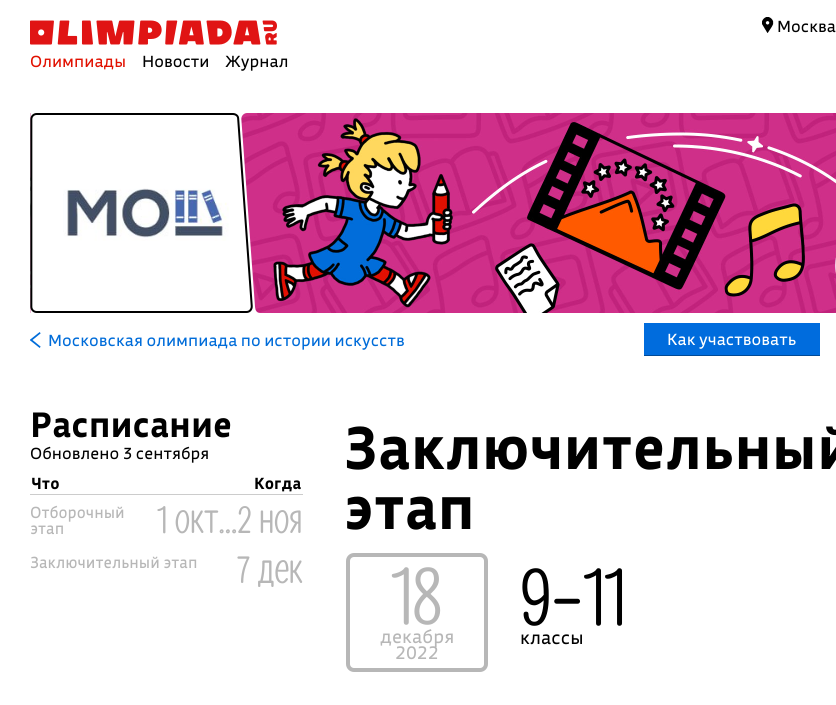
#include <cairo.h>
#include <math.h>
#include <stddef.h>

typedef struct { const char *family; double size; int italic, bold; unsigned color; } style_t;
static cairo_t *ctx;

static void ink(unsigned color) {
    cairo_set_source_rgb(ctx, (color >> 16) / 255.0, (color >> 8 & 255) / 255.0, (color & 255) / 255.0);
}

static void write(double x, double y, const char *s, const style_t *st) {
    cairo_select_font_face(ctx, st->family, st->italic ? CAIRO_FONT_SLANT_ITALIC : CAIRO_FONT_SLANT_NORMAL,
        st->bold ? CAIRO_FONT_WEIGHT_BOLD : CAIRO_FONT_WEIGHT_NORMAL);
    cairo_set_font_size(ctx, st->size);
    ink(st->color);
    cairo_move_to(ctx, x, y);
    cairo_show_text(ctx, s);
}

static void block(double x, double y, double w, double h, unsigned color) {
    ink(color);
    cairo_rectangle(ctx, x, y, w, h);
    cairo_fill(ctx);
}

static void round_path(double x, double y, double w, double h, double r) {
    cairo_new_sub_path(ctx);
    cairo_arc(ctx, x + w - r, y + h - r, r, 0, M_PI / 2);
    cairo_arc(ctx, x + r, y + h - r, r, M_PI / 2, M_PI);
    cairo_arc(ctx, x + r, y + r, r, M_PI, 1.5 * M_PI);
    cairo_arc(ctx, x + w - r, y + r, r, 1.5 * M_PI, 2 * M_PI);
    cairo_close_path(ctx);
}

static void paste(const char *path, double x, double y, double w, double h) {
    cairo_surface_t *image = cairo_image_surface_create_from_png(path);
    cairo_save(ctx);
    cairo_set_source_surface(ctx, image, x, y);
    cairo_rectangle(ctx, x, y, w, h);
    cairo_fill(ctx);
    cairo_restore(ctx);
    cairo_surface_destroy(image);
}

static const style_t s1 = {"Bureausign", 16, 0, 0, 0x000000};
static const style_t s2 = {"Bureausign", 16, 0, 0, 0xe11000};
static const style_t s3 = {"Bureausign", 16, 0, 0, 0x006cd9};
static const style_t s4 = {"Bureausign", 16, 0, 0, 0xffffff};
static const style_t s5 = {"Bureausign", 35, 0, 1, 0x000000};
static const style_t s6 = {"Bureausign", 16, 0, 1, 0x000000};
static const style_t s7 = {"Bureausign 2", 16, 0, 0, 0xb7b7b7};
static const style_t s8 = {"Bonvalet", 38, 0, 0, 0xb7b7b7};
static const style_t s9 = {"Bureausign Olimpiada", 60, 0, 0, 0x000000};
static const style_t s10 = {"Bonvalet", 80, 0, 0, 0xb7b7b7};
static const style_t s11 = {"Bureausign", 18, 0, 0, 0xb7b7b7};
static const style_t s12 = {"Bonvalet", 80, 0, 0, 0x000000};
static const style_t s13 = {"Bureausign", 18, 0, 0, 0x000000};

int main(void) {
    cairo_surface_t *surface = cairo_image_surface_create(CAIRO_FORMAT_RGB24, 836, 705);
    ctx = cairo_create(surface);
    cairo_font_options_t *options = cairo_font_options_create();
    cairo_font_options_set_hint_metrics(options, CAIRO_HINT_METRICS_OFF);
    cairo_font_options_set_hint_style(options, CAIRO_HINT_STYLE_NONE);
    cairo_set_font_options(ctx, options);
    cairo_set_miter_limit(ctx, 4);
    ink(0xffffff);
    cairo_paint(ctx);
    paste("pic1.png", 30, 20, 247, 25);
    paste("pic2.png", 762, 17, 12, 16);
    write(777, 32, "Москва", &s1);
    write(30, 67, "Олимпиады", &s2);
    write(142, 67, "Новости", &s1);
    write(225, 67, "Журнал", &s1);
    paste("pic3.png", 30, 113, 806, 200);
    paste("pic4.png", 30, 113, 230, 200);
    paste("pic5.png", 63, 188, 166, 53);
    paste("pic6.png", 30, 332, 11, 16);
    write(48, 346, "Московская олимпиада по истории искусств", &s3);
    block(644, 323, 176, 32, 0x006cdd);
    block(644, 355, 176, 1, 0x014a97);
    write(667, 345, "Как участвовать", &s4);
    write(30, 437, "Расписание", &s5);
    write(30, 459, "Обновлено 3 сентября", &s1);
    write(31, 489, "Что", &s6);
    block(30, 494, 273, 1, 0xcccccc);
    write(254, 489, "Когда", &s6);
    write(30, 518, "Отборочный", &s7);
    write(30, 534, "этап", &s7);
    write(157, 533, "1 окт...2 ноя", &s8);
    write(30, 568, "Заключительный этап", &s7);
    write(237, 583, "7 дек", &s8);
    write(343, 469, "Заключительный", &s9);
    write(343, 529, "этап", &s9);
    round_path(348, 555, 138, 115, 6);
    ink(0xb7b7b7);
    cairo_set_line_width(ctx, 4);
    cairo_stroke(ctx);
    write(391, 624, "18", &s10);
    write(380, 643, "декабря", &s11);
    write(395, 659, "2022", &s11);
    write(520, 625, "9–11", &s12);
    write(520, 644, "классы", &s13);
    cairo_surface_write_to_png(surface, "screenshot.png");
    cairo_font_options_destroy(options);
    cairo_destroy(ctx);
    cairo_surface_destroy(surface);
    return 0;
}
